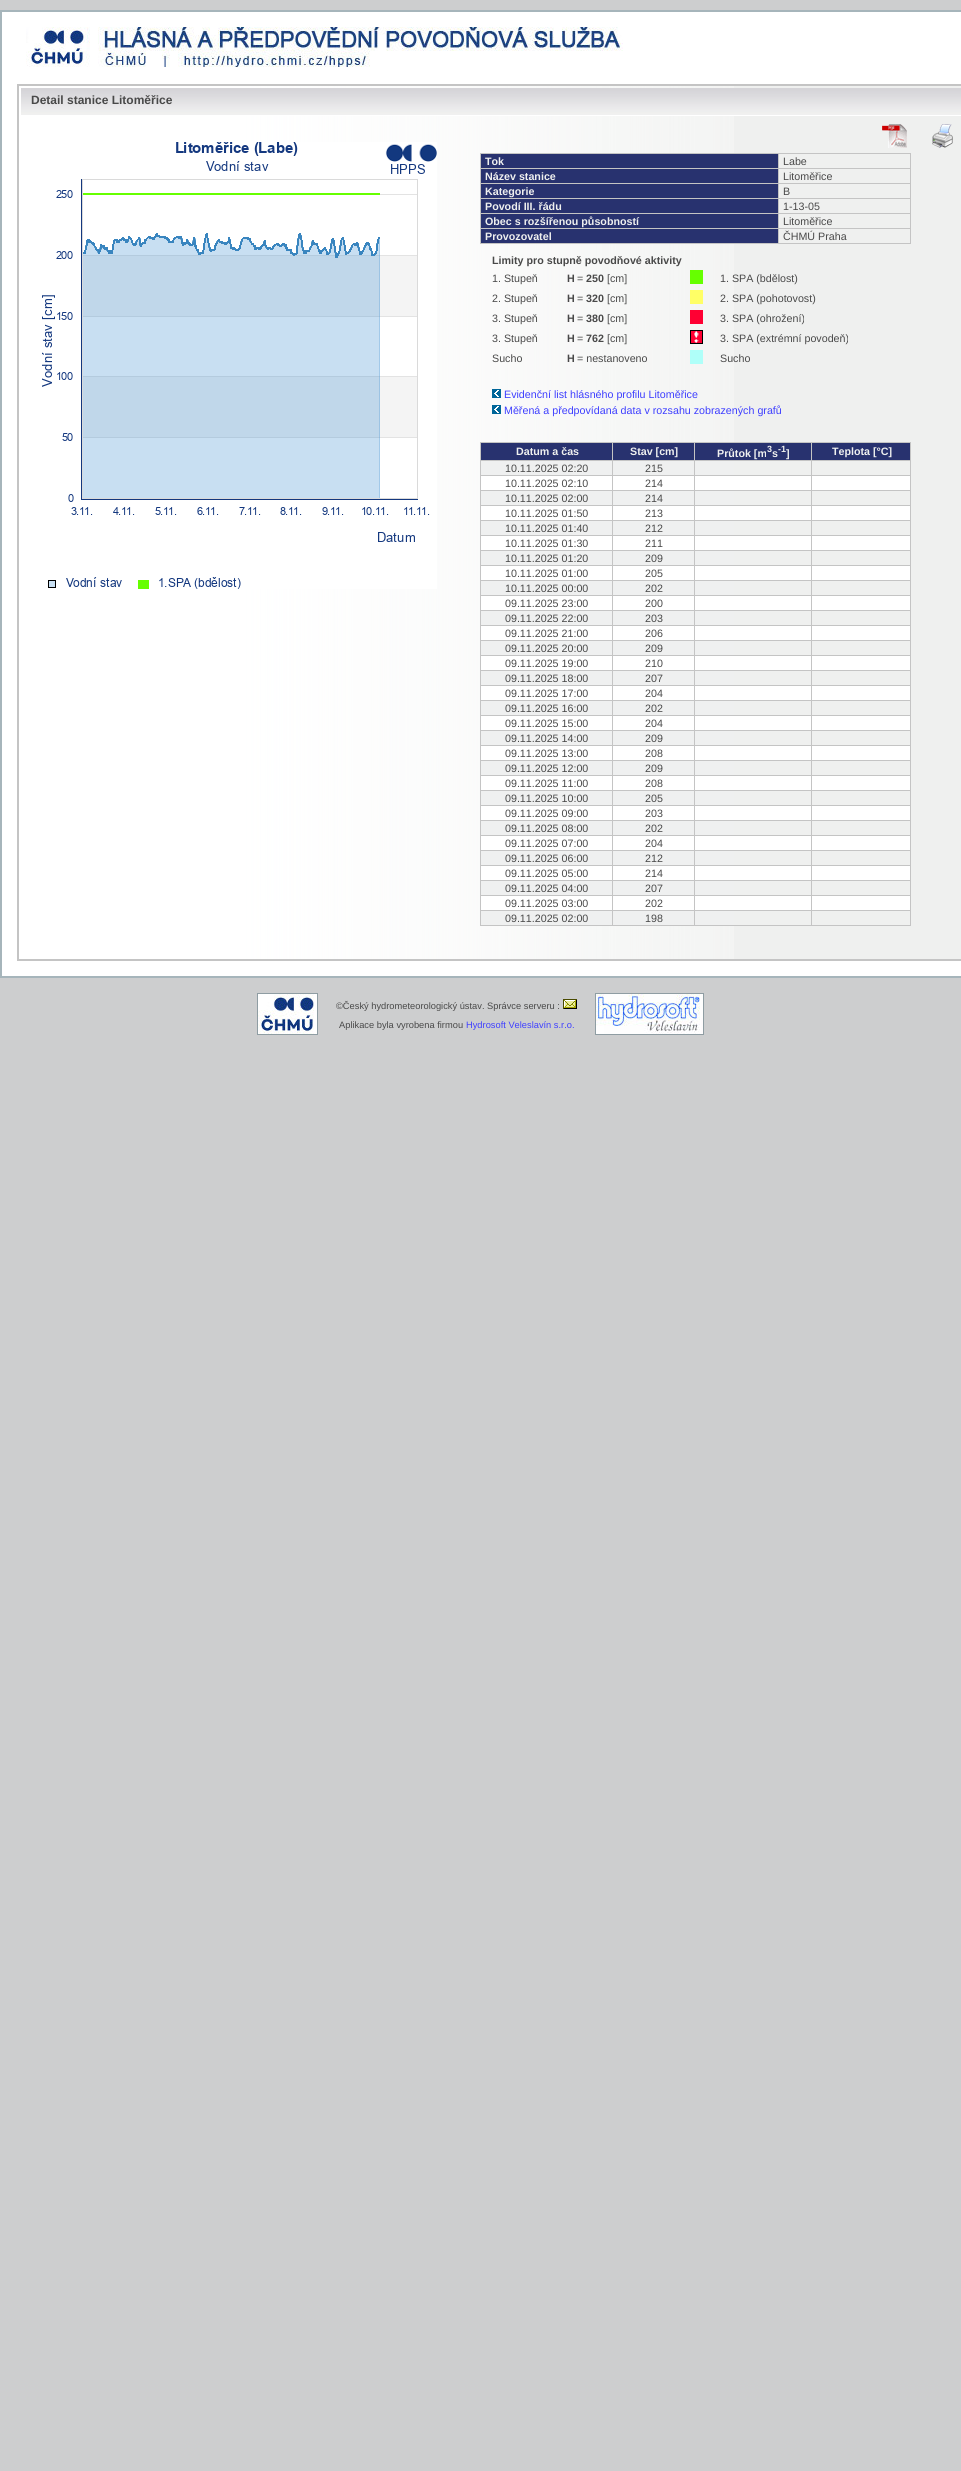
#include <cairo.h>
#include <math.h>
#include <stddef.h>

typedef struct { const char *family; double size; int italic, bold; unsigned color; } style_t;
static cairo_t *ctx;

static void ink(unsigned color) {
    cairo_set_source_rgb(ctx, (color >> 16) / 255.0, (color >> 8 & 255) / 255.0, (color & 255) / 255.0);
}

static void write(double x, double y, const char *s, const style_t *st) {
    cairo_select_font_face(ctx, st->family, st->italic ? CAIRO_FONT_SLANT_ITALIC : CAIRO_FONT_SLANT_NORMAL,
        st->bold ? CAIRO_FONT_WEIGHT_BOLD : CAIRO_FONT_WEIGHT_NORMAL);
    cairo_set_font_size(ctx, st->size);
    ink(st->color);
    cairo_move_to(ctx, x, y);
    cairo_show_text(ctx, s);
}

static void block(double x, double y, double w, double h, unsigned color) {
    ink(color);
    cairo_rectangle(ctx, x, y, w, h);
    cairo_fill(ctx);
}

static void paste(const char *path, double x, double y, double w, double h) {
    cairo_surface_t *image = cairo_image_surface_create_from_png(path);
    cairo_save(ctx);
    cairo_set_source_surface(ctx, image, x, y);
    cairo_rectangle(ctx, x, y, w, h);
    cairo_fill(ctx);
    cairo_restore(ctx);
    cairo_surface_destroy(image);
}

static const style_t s1 = {"Liberation Sans", 12, 0, 1, 0x494949};
static const style_t s2 = {"Liberation Sans", 10.7, 0, 1, 0xeff0ef};
static const style_t s3 = {"Liberation Sans", 10.7, 0, 0, 0x494949};
static const style_t s4 = {"Liberation Sans", 10.7, 0, 1, 0x494949};
static const style_t s5 = {"Liberation Sans", 10.7, 0, 0, 0x3e3fff};
static const style_t s6 = {"Liberation Sans", 9, 0, 1, 0xeff0ef};
static const style_t s7 = {"Liberation Sans", 9.3, 0, 0, 0x494949};
static const style_t s8 = {"Liberation Sans", 9.3, 0, 0, 0x3e3fff};

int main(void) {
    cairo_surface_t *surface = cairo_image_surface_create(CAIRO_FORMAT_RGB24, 961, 2471);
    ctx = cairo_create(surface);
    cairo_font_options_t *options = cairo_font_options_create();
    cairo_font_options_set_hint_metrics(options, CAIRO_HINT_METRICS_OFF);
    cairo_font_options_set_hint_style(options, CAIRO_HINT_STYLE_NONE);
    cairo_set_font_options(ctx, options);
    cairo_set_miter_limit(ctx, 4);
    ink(0xcdcecf);
    cairo_paint(ctx);
    ink(0xffffff);
    cairo_rectangle(ctx, 1, 11, 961, 966);
    cairo_fill_preserve(ctx);
    ink(0xa6b5bb);
    cairo_stroke(ctx);
    paste("pic1.png", 26, 27, 597, 40);
    block(734, 86, 227, 873, 0xeff0ef);
    paste("pic2.png", 19, 86, 715, 873);
    cairo_rectangle(ctx, 18, 85, 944, 875);
    ink(0xc4c4c4);
    cairo_stroke(ctx);
    paste("pic3.png", 21, 88, 940, 28);
    write(31, 104, "Detail stanice Litoměřice", &s1);
    paste("pic4.png", 882, 124, 25, 24);
    paste("pic5.png", 932, 124, 21, 24);
    paste("pic6.png", 42, 142, 395, 447);
    block(480, 153, 431, 1, 0xc4c4c4);
    block(910, 153, 1, 91, 0xc4c4c4);
    block(480, 243, 431, 1, 0xc4c4c4);
    block(480, 153, 1, 91, 0xc4c4c4);
    block(481, 154, 297, 14, 0x28326f);
    write(485, 165, "Tok", &s2);
    block(778, 168, 133, 1, 0xc4c4c4);
    block(778, 183, 133, 1, 0xc4c4c4);
    block(778, 198, 133, 1, 0xc4c4c4);
    block(778, 213, 133, 1, 0xc4c4c4);
    block(778, 228, 133, 1, 0xc4c4c4);
    block(778, 228, 1, 16, 0xc4c4c4);
    block(480, 228, 299, 1, 0xc4c4c4);
    block(778, 213, 1, 16, 0xc4c4c4);
    block(480, 213, 299, 1, 0xc4c4c4);
    block(778, 198, 1, 16, 0xc4c4c4);
    block(480, 198, 299, 1, 0xc4c4c4);
    block(778, 183, 1, 16, 0xc4c4c4);
    block(480, 183, 299, 1, 0xc4c4c4);
    block(778, 168, 1, 16, 0xc4c4c4);
    block(480, 168, 299, 1, 0xc4c4c4);
    block(778, 153, 1, 16, 0xc4c4c4);
    write(783, 165, "Labe", &s3);
    block(481, 169, 297, 14, 0x28326f);
    write(485, 180, "Název stanice", &s2);
    write(783, 180, "Litoměřice", &s3);
    block(481, 184, 297, 14, 0x28326f);
    write(485, 195, "Kategorie", &s2);
    write(783, 195, "B", &s3);
    block(481, 199, 297, 14, 0x28326f);
    write(485, 210, "Povodí III. řádu", &s2);
    write(783, 210, "1-13-05", &s3);
    block(481, 214, 297, 14, 0x28326f);
    write(485, 225, "Obec s rozšířenou působností", &s2);
    write(783, 225, "Litoměřice", &s3);
    block(481, 229, 297, 14, 0x28326f);
    write(485, 240, "Provozovatel", &s2);
    write(783, 240, "ČHMÚ Praha", &s3);
    write(492, 264, "Limity pro stupně povodňové aktivity", &s4);
    write(492, 282, "1. Stupeň", &s3);
    write(567, 282, "H", &s4);
    write(577, 282, "=", &s3);
    write(586, 282, "250", &s4);
    write(607, 282, "[cm]", &s3);
    block(690, 270, 13, 14, 0x66ff00);
    write(720, 282, "1. SPA (bdělost)", &s3);
    write(492, 302, "2. Stupeň", &s3);
    write(567, 302, "H", &s4);
    write(577, 302, "=", &s3);
    write(586, 302, "320", &s4);
    write(607, 302, "[cm]", &s3);
    block(690, 290, 13, 14, 0xffff66);
    write(720, 302, "2. SPA (pohotovost)", &s3);
    write(492, 322, "3. Stupeň", &s3);
    write(567, 322, "H", &s4);
    write(577, 322, "=", &s3);
    write(586, 322, "380", &s4);
    write(607, 322, "[cm]", &s3);
    block(690, 310, 13, 14, 0xff0033);
    write(720, 322, "3. SPA (ohrožení)", &s3);
    write(492, 342, "3. Stupeň", &s3);
    write(567, 342, "H", &s4);
    write(577, 342, "=", &s3);
    write(586, 342, "762", &s4);
    write(607, 342, "[cm]", &s3);
    paste("pic7.png", 690, 330, 13, 14);
    write(720, 342, "3. SPA (extrémní povodeň)", &s3);
    write(492, 362, "Sucho", &s3);
    write(567, 362, "H", &s4);
    write(577, 362, "= nestanoveno", &s3);
    block(690, 350, 13, 14, 0xaffff9);
    write(720, 362, "Sucho", &s3);
    paste("pic8.png", 492, 389, 9, 9);
    write(504, 398, "Evidenční list hlásného profilu Litoměřice", &s5);
    paste("pic8.png", 492, 405, 9, 9);
    write(504, 414, "Měřená a předpovídaná data v rozsahu zobrazených grafů", &s5);
    block(480, 442, 431, 1, 0xc4c4c4);
    block(910, 442, 1, 484, 0xc4c4c4);
    block(480, 925, 431, 1, 0xc4c4c4);
    block(480, 442, 1, 484, 0xc4c4c4);
    block(481, 443, 131, 17, 0x28326f);
    write(516, 455, "Datum a čas", &s2);
    block(613, 443, 81, 17, 0x28326f);
    block(811, 460, 100, 1, 0xc4c4c4);
    block(811, 475, 100, 1, 0xc4c4c4);
    block(481, 476, 429, 14, 0xffffff);
    block(811, 490, 100, 1, 0xc4c4c4);
    block(811, 505, 100, 1, 0xc4c4c4);
    block(481, 506, 429, 14, 0xffffff);
    block(811, 520, 100, 1, 0xc4c4c4);
    block(811, 535, 100, 1, 0xc4c4c4);
    block(481, 536, 429, 14, 0xffffff);
    block(811, 550, 100, 1, 0xc4c4c4);
    block(811, 565, 100, 1, 0xc4c4c4);
    block(481, 566, 429, 14, 0xffffff);
    block(811, 580, 100, 1, 0xc4c4c4);
    block(811, 595, 100, 1, 0xc4c4c4);
    block(481, 596, 429, 14, 0xffffff);
    block(811, 610, 100, 1, 0xc4c4c4);
    block(811, 625, 100, 1, 0xc4c4c4);
    block(481, 626, 429, 14, 0xffffff);
    block(811, 640, 100, 1, 0xc4c4c4);
    block(811, 655, 100, 1, 0xc4c4c4);
    block(481, 656, 429, 14, 0xffffff);
    block(811, 670, 100, 1, 0xc4c4c4);
    block(811, 685, 100, 1, 0xc4c4c4);
    block(481, 686, 429, 14, 0xffffff);
    block(811, 700, 100, 1, 0xc4c4c4);
    block(811, 715, 100, 1, 0xc4c4c4);
    block(481, 716, 429, 14, 0xffffff);
    block(811, 730, 100, 1, 0xc4c4c4);
    block(811, 745, 100, 1, 0xc4c4c4);
    block(481, 746, 429, 14, 0xffffff);
    block(811, 760, 100, 1, 0xc4c4c4);
    block(811, 775, 100, 1, 0xc4c4c4);
    block(481, 776, 429, 14, 0xffffff);
    block(811, 790, 100, 1, 0xc4c4c4);
    block(811, 805, 100, 1, 0xc4c4c4);
    block(481, 806, 429, 14, 0xffffff);
    block(811, 820, 100, 1, 0xc4c4c4);
    block(811, 835, 100, 1, 0xc4c4c4);
    block(481, 836, 429, 14, 0xffffff);
    block(811, 850, 100, 1, 0xc4c4c4);
    block(811, 865, 100, 1, 0xc4c4c4);
    block(481, 866, 429, 14, 0xffffff);
    block(811, 880, 100, 1, 0xc4c4c4);
    block(811, 895, 100, 1, 0xc4c4c4);
    block(481, 896, 429, 14, 0xffffff);
    block(811, 910, 100, 1, 0xc4c4c4);
    block(811, 910, 1, 16, 0xc4c4c4);
    block(694, 910, 118, 1, 0xc4c4c4);
    block(811, 895, 1, 16, 0xc4c4c4);
    block(694, 895, 118, 1, 0xc4c4c4);
    block(811, 880, 1, 16, 0xc4c4c4);
    block(694, 880, 118, 1, 0xc4c4c4);
    block(811, 865, 1, 16, 0xc4c4c4);
    block(694, 865, 118, 1, 0xc4c4c4);
    block(811, 850, 1, 16, 0xc4c4c4);
    block(694, 850, 118, 1, 0xc4c4c4);
    block(811, 835, 1, 16, 0xc4c4c4);
    block(694, 835, 118, 1, 0xc4c4c4);
    block(811, 820, 1, 16, 0xc4c4c4);
    block(694, 820, 118, 1, 0xc4c4c4);
    block(811, 805, 1, 16, 0xc4c4c4);
    block(694, 805, 118, 1, 0xc4c4c4);
    block(811, 790, 1, 16, 0xc4c4c4);
    block(694, 790, 118, 1, 0xc4c4c4);
    block(811, 775, 1, 16, 0xc4c4c4);
    block(694, 775, 118, 1, 0xc4c4c4);
    block(811, 760, 1, 16, 0xc4c4c4);
    block(694, 760, 118, 1, 0xc4c4c4);
    block(811, 745, 1, 16, 0xc4c4c4);
    block(694, 745, 118, 1, 0xc4c4c4);
    block(811, 730, 1, 16, 0xc4c4c4);
    block(694, 730, 118, 1, 0xc4c4c4);
    block(811, 715, 1, 16, 0xc4c4c4);
    block(694, 715, 118, 1, 0xc4c4c4);
    block(811, 700, 1, 16, 0xc4c4c4);
    block(694, 700, 118, 1, 0xc4c4c4);
    block(811, 685, 1, 16, 0xc4c4c4);
    block(694, 685, 118, 1, 0xc4c4c4);
    block(811, 670, 1, 16, 0xc4c4c4);
    block(694, 670, 118, 1, 0xc4c4c4);
    block(811, 655, 1, 16, 0xc4c4c4);
    block(694, 655, 118, 1, 0xc4c4c4);
    block(811, 640, 1, 16, 0xc4c4c4);
    block(694, 640, 118, 1, 0xc4c4c4);
    block(811, 625, 1, 16, 0xc4c4c4);
    block(694, 625, 118, 1, 0xc4c4c4);
    block(811, 610, 1, 16, 0xc4c4c4);
    block(694, 610, 118, 1, 0xc4c4c4);
    block(811, 595, 1, 16, 0xc4c4c4);
    block(694, 595, 118, 1, 0xc4c4c4);
    block(811, 580, 1, 16, 0xc4c4c4);
    block(694, 580, 118, 1, 0xc4c4c4);
    block(811, 565, 1, 16, 0xc4c4c4);
    block(694, 565, 118, 1, 0xc4c4c4);
    block(811, 550, 1, 16, 0xc4c4c4);
    block(694, 550, 118, 1, 0xc4c4c4);
    block(811, 535, 1, 16, 0xc4c4c4);
    block(694, 535, 118, 1, 0xc4c4c4);
    block(811, 520, 1, 16, 0xc4c4c4);
    block(694, 520, 118, 1, 0xc4c4c4);
    block(811, 505, 1, 16, 0xc4c4c4);
    block(694, 505, 118, 1, 0xc4c4c4);
    block(811, 490, 1, 16, 0xc4c4c4);
    block(694, 490, 118, 1, 0xc4c4c4);
    block(811, 475, 1, 16, 0xc4c4c4);
    block(694, 475, 118, 1, 0xc4c4c4);
    block(811, 460, 1, 16, 0xc4c4c4);
    block(694, 460, 118, 1, 0xc4c4c4);
    block(481, 461, 253, 14, 0xeff0f0);
    block(481, 491, 253, 14, 0xeff0f0);
    block(481, 521, 253, 14, 0xeff0f0);
    block(481, 551, 253, 14, 0xeff0f0);
    block(481, 581, 253, 14, 0xeff0f0);
    block(481, 611, 253, 14, 0xeff0f0);
    block(481, 641, 253, 14, 0xeff0f0);
    block(481, 671, 253, 14, 0xeff0f0);
    block(481, 701, 253, 14, 0xeff0f0);
    block(481, 731, 253, 14, 0xeff0f0);
    block(481, 761, 253, 14, 0xeff0f0);
    block(481, 791, 253, 14, 0xeff0f0);
    block(481, 821, 253, 14, 0xeff0f0);
    block(481, 851, 253, 14, 0xeff0f0);
    block(481, 881, 253, 14, 0xeff0f0);
    block(481, 911, 253, 14, 0xeff0f0);
    block(694, 910, 1, 16, 0xc4c4c4);
    block(612, 910, 83, 1, 0xc4c4c4);
    block(694, 895, 1, 16, 0xc4c4c4);
    block(612, 895, 83, 1, 0xc4c4c4);
    block(694, 880, 1, 16, 0xc4c4c4);
    block(612, 880, 83, 1, 0xc4c4c4);
    block(694, 865, 1, 16, 0xc4c4c4);
    block(612, 865, 83, 1, 0xc4c4c4);
    block(694, 850, 1, 16, 0xc4c4c4);
    block(612, 850, 83, 1, 0xc4c4c4);
    block(694, 835, 1, 16, 0xc4c4c4);
    block(612, 835, 83, 1, 0xc4c4c4);
    block(694, 820, 1, 16, 0xc4c4c4);
    block(612, 820, 83, 1, 0xc4c4c4);
    block(694, 805, 1, 16, 0xc4c4c4);
    block(612, 805, 83, 1, 0xc4c4c4);
    block(694, 790, 1, 16, 0xc4c4c4);
    block(612, 790, 83, 1, 0xc4c4c4);
    block(694, 775, 1, 16, 0xc4c4c4);
    block(612, 775, 83, 1, 0xc4c4c4);
    block(694, 760, 1, 16, 0xc4c4c4);
    block(612, 760, 83, 1, 0xc4c4c4);
    block(694, 745, 1, 16, 0xc4c4c4);
    block(612, 745, 83, 1, 0xc4c4c4);
    block(694, 730, 1, 16, 0xc4c4c4);
    block(612, 730, 83, 1, 0xc4c4c4);
    block(694, 715, 1, 16, 0xc4c4c4);
    block(612, 715, 83, 1, 0xc4c4c4);
    block(694, 700, 1, 16, 0xc4c4c4);
    block(612, 700, 83, 1, 0xc4c4c4);
    block(694, 685, 1, 16, 0xc4c4c4);
    block(612, 685, 83, 1, 0xc4c4c4);
    block(694, 670, 1, 16, 0xc4c4c4);
    block(612, 670, 83, 1, 0xc4c4c4);
    block(694, 655, 1, 16, 0xc4c4c4);
    block(612, 655, 83, 1, 0xc4c4c4);
    block(694, 640, 1, 16, 0xc4c4c4);
    block(612, 640, 83, 1, 0xc4c4c4);
    block(694, 625, 1, 16, 0xc4c4c4);
    block(612, 625, 83, 1, 0xc4c4c4);
    block(694, 610, 1, 16, 0xc4c4c4);
    block(612, 610, 83, 1, 0xc4c4c4);
    block(694, 595, 1, 16, 0xc4c4c4);
    block(612, 595, 83, 1, 0xc4c4c4);
    block(694, 580, 1, 16, 0xc4c4c4);
    block(612, 580, 83, 1, 0xc4c4c4);
    block(694, 565, 1, 16, 0xc4c4c4);
    block(612, 565, 83, 1, 0xc4c4c4);
    block(694, 550, 1, 16, 0xc4c4c4);
    block(612, 550, 83, 1, 0xc4c4c4);
    block(694, 535, 1, 16, 0xc4c4c4);
    block(612, 535, 83, 1, 0xc4c4c4);
    block(694, 520, 1, 16, 0xc4c4c4);
    block(612, 520, 83, 1, 0xc4c4c4);
    block(694, 505, 1, 16, 0xc4c4c4);
    block(612, 505, 83, 1, 0xc4c4c4);
    block(694, 490, 1, 16, 0xc4c4c4);
    block(612, 490, 83, 1, 0xc4c4c4);
    block(694, 475, 1, 16, 0xc4c4c4);
    block(612, 475, 83, 1, 0xc4c4c4);
    block(694, 460, 1, 16, 0xc4c4c4);
    block(612, 460, 83, 1, 0xc4c4c4);
    block(612, 910, 1, 16, 0xc4c4c4);
    block(480, 910, 133, 1, 0xc4c4c4);
    block(612, 895, 1, 16, 0xc4c4c4);
    block(480, 895, 133, 1, 0xc4c4c4);
    block(612, 880, 1, 16, 0xc4c4c4);
    block(480, 880, 133, 1, 0xc4c4c4);
    block(612, 865, 1, 16, 0xc4c4c4);
    block(480, 865, 133, 1, 0xc4c4c4);
    block(612, 850, 1, 16, 0xc4c4c4);
    block(480, 850, 133, 1, 0xc4c4c4);
    block(612, 835, 1, 16, 0xc4c4c4);
    block(480, 835, 133, 1, 0xc4c4c4);
    block(612, 820, 1, 16, 0xc4c4c4);
    block(480, 820, 133, 1, 0xc4c4c4);
    block(612, 805, 1, 16, 0xc4c4c4);
    block(480, 805, 133, 1, 0xc4c4c4);
    block(612, 790, 1, 16, 0xc4c4c4);
    block(480, 790, 133, 1, 0xc4c4c4);
    block(612, 775, 1, 16, 0xc4c4c4);
    block(480, 775, 133, 1, 0xc4c4c4);
    block(612, 760, 1, 16, 0xc4c4c4);
    block(480, 760, 133, 1, 0xc4c4c4);
    block(612, 745, 1, 16, 0xc4c4c4);
    block(480, 745, 133, 1, 0xc4c4c4);
    block(612, 730, 1, 16, 0xc4c4c4);
    block(480, 730, 133, 1, 0xc4c4c4);
    block(612, 715, 1, 16, 0xc4c4c4);
    block(480, 715, 133, 1, 0xc4c4c4);
    block(612, 700, 1, 16, 0xc4c4c4);
    block(480, 700, 133, 1, 0xc4c4c4);
    block(612, 685, 1, 16, 0xc4c4c4);
    block(480, 685, 133, 1, 0xc4c4c4);
    block(612, 670, 1, 16, 0xc4c4c4);
    block(480, 670, 133, 1, 0xc4c4c4);
    block(612, 655, 1, 16, 0xc4c4c4);
    block(480, 655, 133, 1, 0xc4c4c4);
    block(612, 640, 1, 16, 0xc4c4c4);
    block(480, 640, 133, 1, 0xc4c4c4);
    block(612, 625, 1, 16, 0xc4c4c4);
    block(480, 625, 133, 1, 0xc4c4c4);
    block(612, 610, 1, 16, 0xc4c4c4);
    block(480, 610, 133, 1, 0xc4c4c4);
    block(612, 595, 1, 16, 0xc4c4c4);
    block(480, 595, 133, 1, 0xc4c4c4);
    block(612, 580, 1, 16, 0xc4c4c4);
    block(480, 580, 133, 1, 0xc4c4c4);
    block(612, 565, 1, 16, 0xc4c4c4);
    block(480, 565, 133, 1, 0xc4c4c4);
    block(612, 550, 1, 16, 0xc4c4c4);
    block(480, 550, 133, 1, 0xc4c4c4);
    block(612, 535, 1, 16, 0xc4c4c4);
    block(480, 535, 133, 1, 0xc4c4c4);
    block(612, 520, 1, 16, 0xc4c4c4);
    block(480, 520, 133, 1, 0xc4c4c4);
    block(612, 505, 1, 16, 0xc4c4c4);
    block(480, 505, 133, 1, 0xc4c4c4);
    block(612, 490, 1, 16, 0xc4c4c4);
    block(480, 490, 133, 1, 0xc4c4c4);
    block(612, 475, 1, 16, 0xc4c4c4);
    block(480, 475, 133, 1, 0xc4c4c4);
    block(612, 460, 1, 16, 0xc4c4c4);
    block(480, 460, 133, 1, 0xc4c4c4);
    block(612, 442, 1, 19, 0xc4c4c4);
    write(630, 455, "Stav [cm]", &s2);
    block(695, 443, 116, 17, 0x28326f);
    block(694, 442, 1, 19, 0xc4c4c4);
    write(717, 457, "Průtok [m", &s2);
    write(767, 452, "3", &s6);
    write(772, 457, "s", &s2);
    write(778, 452, "-1", &s6);
    write(786, 457, "]", &s2);
    block(812, 443, 98, 17, 0x28326f);
    block(811, 442, 1, 19, 0xc4c4c4);
    write(832, 455, "Teplota [°C]", &s2);
    write(505, 472, "10.11.2025 02:20", &s3);
    write(645, 472, "215", &s3);
    write(505, 487, "10.11.2025 02:10", &s3);
    write(645, 487, "214", &s3);
    write(505, 502, "10.11.2025 02:00", &s3);
    write(645, 502, "214", &s3);
    write(505, 517, "10.11.2025 01:50", &s3);
    write(645, 517, "213", &s3);
    write(505, 532, "10.11.2025 01:40", &s3);
    write(645, 532, "212", &s3);
    write(505, 547, "10.11.2025 01:30", &s3);
    write(645, 547, "211", &s3);
    write(505, 562, "10.11.2025 01:20", &s3);
    write(645, 562, "209", &s3);
    write(505, 577, "10.11.2025 01:00", &s3);
    write(645, 577, "205", &s3);
    write(505, 592, "10.11.2025 00:00", &s3);
    write(645, 592, "202", &s3);
    write(505, 607, "09.11.2025 23:00", &s3);
    write(645, 607, "200", &s3);
    write(505, 622, "09.11.2025 22:00", &s3);
    write(645, 622, "203", &s3);
    write(505, 637, "09.11.2025 21:00", &s3);
    write(645, 637, "206", &s3);
    write(505, 652, "09.11.2025 20:00", &s3);
    write(645, 652, "209", &s3);
    write(505, 667, "09.11.2025 19:00", &s3);
    write(645, 667, "210", &s3);
    write(505, 682, "09.11.2025 18:00", &s3);
    write(645, 682, "207", &s3);
    write(505, 697, "09.11.2025 17:00", &s3);
    write(645, 697, "204", &s3);
    write(505, 712, "09.11.2025 16:00", &s3);
    write(645, 712, "202", &s3);
    write(505, 727, "09.11.2025 15:00", &s3);
    write(645, 727, "204", &s3);
    write(505, 742, "09.11.2025 14:00", &s3);
    write(645, 742, "209", &s3);
    write(505, 757, "09.11.2025 13:00", &s3);
    write(645, 757, "208", &s3);
    write(505, 772, "09.11.2025 12:00", &s3);
    write(645, 772, "209", &s3);
    write(505, 787, "09.11.2025 11:00", &s3);
    write(645, 787, "208", &s3);
    write(505, 802, "09.11.2025 10:00", &s3);
    write(645, 802, "205", &s3);
    write(505, 817, "09.11.2025 09:00", &s3);
    write(645, 817, "203", &s3);
    write(505, 832, "09.11.2025 08:00", &s3);
    write(645, 832, "202", &s3);
    write(505, 847, "09.11.2025 07:00", &s3);
    write(645, 847, "204", &s3);
    write(505, 862, "09.11.2025 06:00", &s3);
    write(645, 862, "212", &s3);
    write(505, 877, "09.11.2025 05:00", &s3);
    write(645, 877, "214", &s3);
    write(505, 892, "09.11.2025 04:00", &s3);
    write(645, 892, "207", &s3);
    write(505, 907, "09.11.2025 03:00", &s3);
    write(645, 907, "202", &s3);
    write(505, 922, "09.11.2025 02:00", &s3);
    write(645, 922, "198", &s3);
    cairo_rectangle(ctx, 257.5, 993.5, 60, 41);
    ink(0x8f9da3);
    cairo_set_line_width(ctx, 1);
    cairo_stroke(ctx);
    paste("pic9.png", 258, 994, 59, 40);
    write(336, 1009, "©Český hydrometeorologický ústav. Správce serveru :", &s7);
    paste("pic10.png", 563, 999, 14, 10);
    write(339, 1028, "Aplikace byla vyrobena firmou", &s7);
    write(466, 1028, "Hydrosoft Veleslavín s.r.o.", &s8);
    cairo_rectangle(ctx, 595.5, 993.5, 108, 41);
    ink(0x8f9da3);
    cairo_stroke(ctx);
    paste("pic11.png", 596, 994, 107, 40);
    cairo_surface_write_to_png(surface, "screenshot.png");
    cairo_font_options_destroy(options);
    cairo_destroy(ctx);
    cairo_surface_destroy(surface);
    return 0;
}
